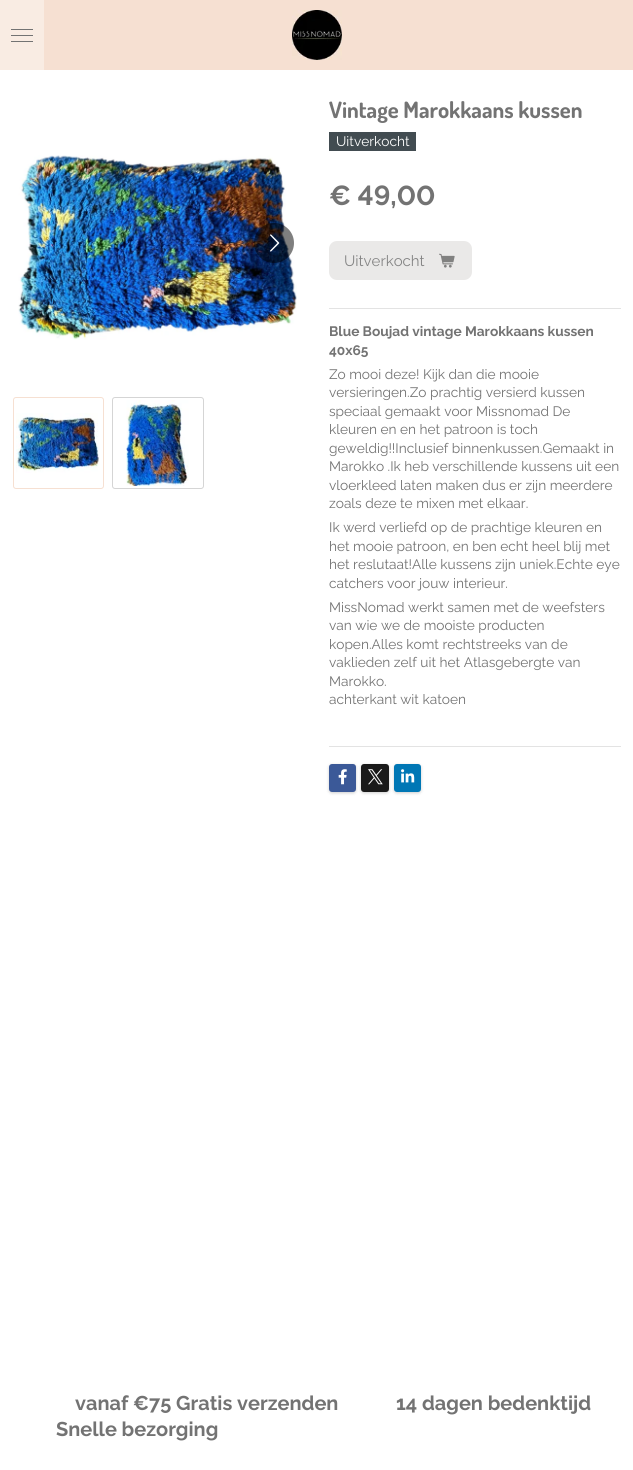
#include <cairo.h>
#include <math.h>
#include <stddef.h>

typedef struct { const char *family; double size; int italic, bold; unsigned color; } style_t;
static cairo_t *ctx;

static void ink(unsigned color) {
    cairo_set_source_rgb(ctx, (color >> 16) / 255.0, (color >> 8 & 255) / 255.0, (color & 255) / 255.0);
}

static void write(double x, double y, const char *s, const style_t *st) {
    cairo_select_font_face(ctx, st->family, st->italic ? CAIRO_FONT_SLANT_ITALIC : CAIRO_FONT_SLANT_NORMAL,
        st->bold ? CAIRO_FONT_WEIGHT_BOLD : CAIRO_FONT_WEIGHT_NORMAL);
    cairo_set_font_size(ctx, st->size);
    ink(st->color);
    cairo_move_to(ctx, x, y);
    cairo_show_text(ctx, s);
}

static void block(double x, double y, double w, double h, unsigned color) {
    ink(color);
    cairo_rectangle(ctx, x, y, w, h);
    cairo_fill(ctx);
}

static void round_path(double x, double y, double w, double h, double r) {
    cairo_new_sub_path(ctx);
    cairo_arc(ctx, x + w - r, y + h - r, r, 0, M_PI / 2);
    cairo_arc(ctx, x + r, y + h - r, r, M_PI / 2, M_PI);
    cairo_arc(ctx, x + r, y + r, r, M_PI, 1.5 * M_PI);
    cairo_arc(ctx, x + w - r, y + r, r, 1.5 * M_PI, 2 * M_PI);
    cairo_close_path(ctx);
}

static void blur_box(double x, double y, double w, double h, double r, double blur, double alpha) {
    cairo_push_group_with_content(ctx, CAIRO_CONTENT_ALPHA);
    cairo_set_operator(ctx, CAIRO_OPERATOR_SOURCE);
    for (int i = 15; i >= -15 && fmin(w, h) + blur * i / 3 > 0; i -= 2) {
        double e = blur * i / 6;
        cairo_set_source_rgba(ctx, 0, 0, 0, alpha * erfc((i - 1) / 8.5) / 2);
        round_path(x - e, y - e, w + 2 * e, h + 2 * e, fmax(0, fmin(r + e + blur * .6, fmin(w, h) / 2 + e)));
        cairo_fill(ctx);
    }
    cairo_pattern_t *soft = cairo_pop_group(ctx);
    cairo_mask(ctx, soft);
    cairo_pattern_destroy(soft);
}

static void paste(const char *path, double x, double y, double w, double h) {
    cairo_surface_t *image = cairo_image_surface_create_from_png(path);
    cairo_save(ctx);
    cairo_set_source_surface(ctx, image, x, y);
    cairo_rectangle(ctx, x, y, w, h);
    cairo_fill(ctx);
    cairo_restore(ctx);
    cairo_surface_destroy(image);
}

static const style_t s1 = {"Dosis", 22.5, 0, 1, 0x737373};
static const style_t s2 = {"Raleway", 13.7, 0, 0, 0xffffff};
static const style_t s3 = {"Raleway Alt", 27.5, 0, 1, 0x737373};
static const style_t s4 = {"Raleway", 15, 0, 0, 0x858585};
static const style_t s5 = {"Raleway", 13.7, 0, 1, 0x737373};
static const style_t s6 = {"Raleway", 13.7, 0, 0, 0x737373};
static const style_t s7 = {"Raleway", 19.95, 0, 1, 0x737373};

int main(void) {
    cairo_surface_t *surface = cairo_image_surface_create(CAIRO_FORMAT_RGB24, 633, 1470);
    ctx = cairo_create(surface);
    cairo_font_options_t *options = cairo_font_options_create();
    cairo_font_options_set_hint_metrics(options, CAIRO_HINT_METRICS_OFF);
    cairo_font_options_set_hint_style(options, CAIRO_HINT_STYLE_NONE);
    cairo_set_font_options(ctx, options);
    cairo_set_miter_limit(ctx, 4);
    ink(0xffffff);
    cairo_paint(ctx);
    block(0, 0, 44, 70, 0xf9ece3);
    block(11, 35, 22, 1, 0x737373);
    block(11, 29, 22, 1, 0x737373);
    block(11, 41, 22, 1, 0x737373);
    block(44, 0, 589, 70, 0xf6e0d2);
    paste("pic1.png", 292, 10, 50, 50);
    write(329, 118, "Vintage Marokkaans kussen", &s1);
    block(329, 132, 87, 19, 0x424c51);
    write(336, 146, "Uitverkocht", &s2);
    paste("pic2.png", 18, 155, 279, 185);
    cairo_set_source_rgba(ctx, 0, 0, 0, 0.5);
    cairo_arc(ctx, 274, 243, 20, 0, 2 * M_PI);
    cairo_fill(ctx);
    paste("pic3.png", 270, 234, 10, 18);
    round_path(13.5, 397.5, 90, 91, 2.5);
    ink(0xf6e0d2);
    cairo_set_line_width(ctx, 1);
    cairo_stroke(ctx);
    paste("pic4.png", 16, 413, 83, 60);
    round_path(112.5, 397.5, 91, 91, 2.5);
    ink(0xd5d5d5);
    cairo_stroke(ctx);
    paste("pic5.png", 126, 400, 63, 86);
    write(329, 205, "€ 49,00", &s3);
    ink(0xeae9e8);
    round_path(329, 241, 143, 39, 8);
    cairo_fill(ctx);
    write(344, 266, "Uitverkocht", &s4);
    paste("pic6.png", 439, 253, 16, 15);
    block(329, 308, 292, 1, 0xe3e3e3);
    write(329, 336, "Blue Boujad vintage Marokkaans kussen", &s5);
    write(329, 355, "40x65", &s5);
    write(329, 379, "Zo mooi deze! Kijk dan die mooie", &s6);
    write(329, 397, "versieringen.Zo prachtig versierd kussen", &s6);
    write(329, 416, "speciaal gemaakt voor Missnomad De", &s6);
    write(329, 434, "kleuren en en het patroon is toch", &s6);
    write(329, 453, "geweldig!!Inclusief binnenkussen.Gemaakt in", &s6);
    write(329, 471, "Marokko .Ik heb verschillende kussens uit een", &s6);
    write(329, 490, "vloerkleed laten maken dus er zijn meerdere", &s6);
    write(329, 508, "zoals deze te mixen met elkaar.", &s6);
    write(329, 532, "Ik werd verliefd op de prachtige kleuren en", &s6);
    write(329, 551, "het mooie patroon, en ben echt heel blij met", &s6);
    write(329, 569, "het reslutaat!Alle kussens zijn uniek.Echte eye", &s6);
    write(329, 588, "catchers voor jouw interieur.", &s6);
    write(329, 612, "MissNomad werkt samen met de weefsters", &s6);
    write(329, 630, "van wie we de mooiste producten", &s6);
    write(329, 649, "kopen.Alles komt rechtstreeks van de", &s6);
    write(329, 667, "vaklieden zelf uit het Atlasgebergte van", &s6);
    write(329, 686, "Marokko.", &s6);
    write(329, 704, "achterkant wit katoen", &s6);
    block(329, 746, 292, 1, 0xe3e3e3);
    ink(0x000000);
    blur_box(329, 765, 27, 28, 3, 1.5, 0.2);
    ink(0x3b5998);
    round_path(329, 764, 27, 28, 3);
    cairo_fill(ctx);
    paste("pic7.png", 338, 769, 9, 16);
    ink(0x000000);
    blur_box(361, 765, 28, 28, 3, 1.5, 0.2);
    ink(0x1a1a1a);
    round_path(361, 764, 28, 28, 3);
    cairo_fill(ctx);
    paste("pic8.png", 368, 769, 15, 16);
    ink(0x000000);
    blur_box(394, 765, 27, 28, 3, 1.5, 0.2);
    ink(0x0077b5);
    round_path(394, 764, 27, 28, 3);
    cairo_fill(ctx);
    paste("pic9.png", 401, 769, 14, 14);
    write(75, 1410, "vanaf €75 Gratis verzenden            14 dagen bedenktijd", &s7);
    write(56, 1436, "Snelle bezorging", &s7);
    cairo_surface_write_to_png(surface, "screenshot.png");
    cairo_font_options_destroy(options);
    cairo_destroy(ctx);
    cairo_surface_destroy(surface);
    return 0;
}
